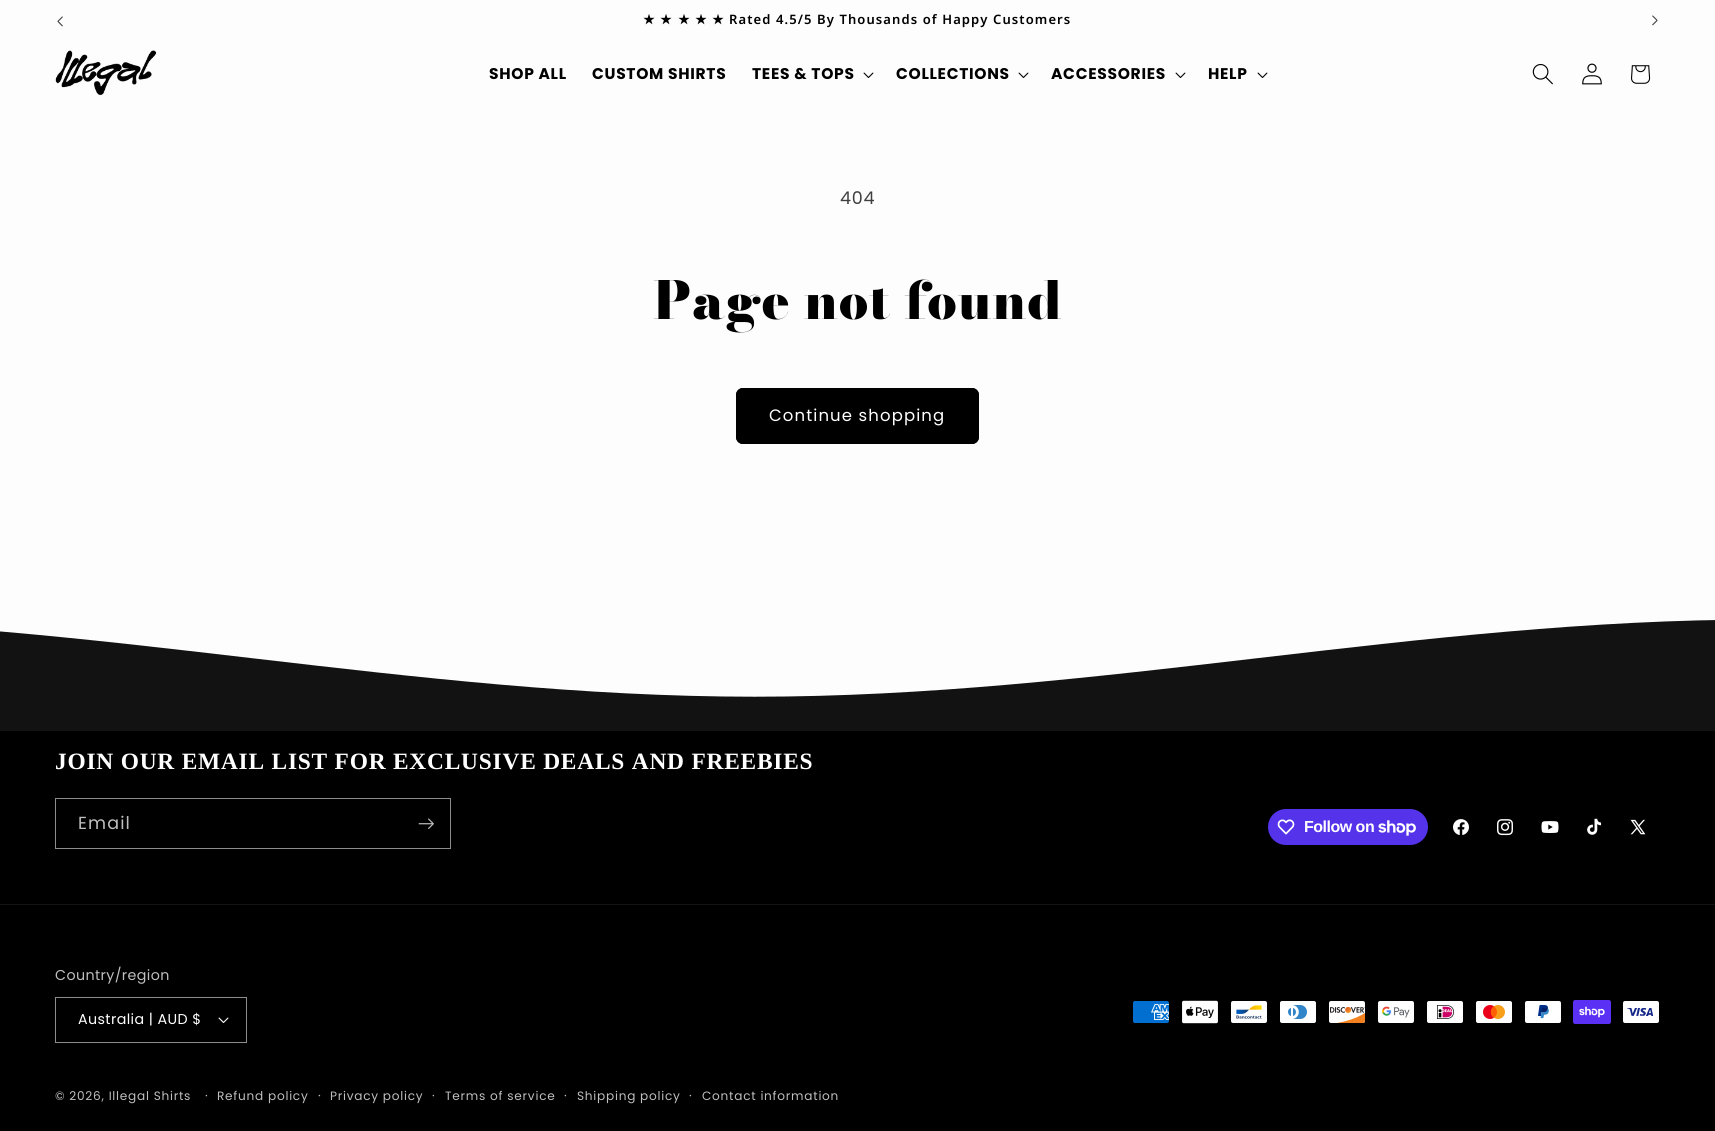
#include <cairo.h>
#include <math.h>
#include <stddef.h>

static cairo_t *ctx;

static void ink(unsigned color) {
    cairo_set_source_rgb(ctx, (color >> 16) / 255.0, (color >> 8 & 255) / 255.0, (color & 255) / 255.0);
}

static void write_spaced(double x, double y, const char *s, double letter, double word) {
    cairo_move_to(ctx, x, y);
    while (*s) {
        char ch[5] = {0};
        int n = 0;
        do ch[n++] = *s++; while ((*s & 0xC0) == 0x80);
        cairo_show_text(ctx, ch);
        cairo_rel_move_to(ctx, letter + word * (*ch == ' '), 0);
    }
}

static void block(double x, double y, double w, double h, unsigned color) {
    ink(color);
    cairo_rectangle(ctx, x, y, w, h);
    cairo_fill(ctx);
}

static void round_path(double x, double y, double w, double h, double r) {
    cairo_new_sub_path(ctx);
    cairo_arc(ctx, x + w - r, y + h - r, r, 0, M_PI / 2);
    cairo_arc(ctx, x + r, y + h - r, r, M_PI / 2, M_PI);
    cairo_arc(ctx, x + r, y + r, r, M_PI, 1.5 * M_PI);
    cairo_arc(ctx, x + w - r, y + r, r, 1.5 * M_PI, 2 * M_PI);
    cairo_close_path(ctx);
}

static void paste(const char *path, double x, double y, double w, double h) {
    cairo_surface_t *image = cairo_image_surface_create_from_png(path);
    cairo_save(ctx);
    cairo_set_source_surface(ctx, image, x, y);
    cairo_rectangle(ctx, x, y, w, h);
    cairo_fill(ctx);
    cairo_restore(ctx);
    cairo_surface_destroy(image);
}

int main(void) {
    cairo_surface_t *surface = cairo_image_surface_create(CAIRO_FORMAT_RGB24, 1715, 1131);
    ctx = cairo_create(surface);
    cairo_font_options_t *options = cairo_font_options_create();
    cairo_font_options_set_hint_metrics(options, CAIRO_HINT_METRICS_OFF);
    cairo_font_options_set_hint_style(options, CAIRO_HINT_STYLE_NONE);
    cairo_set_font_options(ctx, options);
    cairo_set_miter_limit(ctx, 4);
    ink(0xfdfdfd);
    cairo_paint(ctx);
    paste("pic1.png", 57, 16, 6, 11);
    cairo_select_font_face(ctx, "DejaVu Sans", CAIRO_FONT_SLANT_NORMAL, CAIRO_FONT_WEIGHT_BOLD);
    cairo_set_font_size(ctx, 13);
    ink(0x000000);
    write_spaced(643, 24, "★", 1.1, 0);
    write_spaced(660, 24, "★", 1.1, 0);
    write_spaced(678, 24, "★", 1.1, 0);
    write_spaced(695, 24, "★", 1.1, 0);
    write_spaced(712, 24, "★", 1.1, 0);
    cairo_select_font_face(ctx, "Noto Sans SemiBold", CAIRO_FONT_SLANT_NORMAL, CAIRO_FONT_WEIGHT_NORMAL);
    write_spaced(729, 24, "Rated 4.5/5 By Thousands of Happy Customers", 1.1, 0);
    paste("pic2.png", 1652, 15, 6, 11);
    paste("pic3.png", 55, 50, 102, 46);
    cairo_select_font_face(ctx, "Poppins", CAIRO_FONT_SLANT_NORMAL, CAIRO_FONT_WEIGHT_BOLD);
    cairo_set_font_size(ctx, 15.5);
    write_spaced(489, 79, "SHOP ALL", 0.7, 0);
    write_spaced(592, 79, "CUSTOM SHIRTS", 0.7, 0);
    write_spaced(752, 79, "TEES & TOPS", 0.7, 0);
    paste("pic4.png", 863, 72, 11, 6);
    write_spaced(896, 79, "COLLECTIONS", 0.7, 0);
    paste("pic4.png", 1018, 72, 11, 6);
    write_spaced(1051, 79, "ACCESSORIES", 0.7, 0);
    paste("pic4.png", 1175, 72, 11, 6);
    write_spaced(1208, 79, "HELP", 0.7, 0);
    paste("pic4.png", 1257, 72, 11, 6);
    paste("pic5.png", 1532, 63, 21, 22);
    paste("pic6.png", 1582, 63, 20, 22);
    paste("pic7.png", 1631, 65, 20, 19);
    cairo_select_font_face(ctx, "Poppins", CAIRO_FONT_SLANT_NORMAL, CAIRO_FONT_WEIGHT_NORMAL);
    cairo_set_font_size(ctx, 17.5);
    ink(0x3f3f3f);
    write_spaced(840, 204, "404", 0.7, 0);
    cairo_select_font_face(ctx, "Bodoni Moda Black", CAIRO_FONT_SLANT_NORMAL, CAIRO_FONT_WEIGHT_NORMAL);
    cairo_set_font_size(ctx, 52);
    ink(0x000000);
    write_spaced(653, 319, "Page not found", 0.78, 0);
    round_path(736, 388, 243, 56, 7);
    cairo_fill(ctx);
    round_path(737.5, 389.5, 240, 53, 5.5);
    cairo_set_line_width(ctx, 3);
    cairo_stroke(ctx);
    cairo_select_font_face(ctx, "Poppins", CAIRO_FONT_SLANT_NORMAL, CAIRO_FONT_WEIGHT_NORMAL);
    cairo_set_font_size(ctx, 16.5);
    ink(0xffffff);
    write_spaced(769, 421, "Continue shopping", 1.1, 0);
    paste("pic8.png", 0, 620, 1715, 111);
    block(0, 731, 1715, 400, 0x000000);
    cairo_select_font_face(ctx, "Liberation Serif", CAIRO_FONT_SLANT_NORMAL, CAIRO_FONT_WEIGHT_BOLD);
    cairo_set_font_size(ctx, 23.4);
    ink(0xffffff);
    write_spaced(55, 769, "JOIN OUR EMAIL LIST FOR EXCLUSIVE DEALS AND FREEBIES", 0.78, 0);
    cairo_rectangle(ctx, 55.5, 798.5, 395, 50);
    ink(0x8c8c8c);
    cairo_set_line_width(ctx, 1);
    cairo_stroke(ctx);
    cairo_select_font_face(ctx, "Poppins", CAIRO_FONT_SLANT_NORMAL, CAIRO_FONT_WEIGHT_NORMAL);
    cairo_set_font_size(ctx, 17.5);
    ink(0xbfbfbf);
    write_spaced(78, 829, "Email", 1.1, 0);
    paste("pic9.png", 418, 818, 16, 11);
    ink(0x5433eb);
    round_path(1268, 809, 160, 36, 18);
    cairo_fill(ctx);
    paste("pic10.png", 1277, 819, 18, 16);
    cairo_select_font_face(ctx, "Liberation Sans", CAIRO_FONT_SLANT_NORMAL, CAIRO_FONT_WEIGHT_BOLD);
    cairo_set_font_size(ctx, 16);
    ink(0xffffff);
    write_spaced(1304, 832, "Follow on", -0.5, 0);
    paste("pic11.png", 1378, 820, 38, 16);
    paste("pic12.png", 1453, 819, 16, 16);
    paste("pic13.png", 1497, 819, 16, 17);
    paste("pic14.png", 1541, 821, 18, 12);
    paste("pic15.png", 1587, 818, 15, 17);
    paste("pic16.png", 1630, 819, 16, 16);
    block(0, 904, 1715, 1, 0x141414);
    cairo_select_font_face(ctx, "Poppins", CAIRO_FONT_SLANT_NORMAL, CAIRO_FONT_WEIGHT_NORMAL);
    cairo_set_font_size(ctx, 14.25);
    ink(0xbfbfbf);
    write_spaced(55, 980, "Country/region", 0.4, 0);
    paste("pic17.png", 218, 1017, 11, 6);
    cairo_rectangle(ctx, 55.5, 997.5, 191, 45);
    ink(0x8c8c8c);
    cairo_stroke(ctx);
    ink(0xffffff);
    write_spaced(78, 1024, "Australia | AUD $", 0.4, 0);
    paste("pic18.png", 1133, 1001, 36, 22);
    paste("pic19.png", 1182, 1000, 36, 24);
    paste("pic20.png", 1231, 1001, 36, 22);
    paste("pic21.png", 1280, 1001, 36, 22);
    paste("pic22.png", 1329, 1001, 37, 22);
    paste("pic23.png", 1378, 1001, 36, 22);
    paste("pic24.png", 1427, 1001, 36, 22);
    paste("pic25.png", 1476, 1001, 36, 22);
    paste("pic26.png", 1525, 1001, 36, 22);
    paste("pic27.png", 1573, 1000, 38, 24);
    paste("pic28.png", 1623, 1001, 36, 22);
    cairo_set_font_size(ctx, 12.1);
    ink(0xbfbfbf);
    write_spaced(55, 1100, "© 2026, Illegal Shirts", 0.75, 0);
    cairo_set_font_size(ctx, 13);
    write_spaced(205, 1100, "·", 0.75, 0);
    cairo_set_font_size(ctx, 12.1);
    write_spaced(217, 1100, "Refund policy", 0.75, 0);
    cairo_set_font_size(ctx, 13);
    write_spaced(318, 1100, "·", 0.75, 0);
    cairo_set_font_size(ctx, 12.1);
    write_spaced(330, 1100, "Privacy policy", 0.75, 0);
    cairo_set_font_size(ctx, 13);
    write_spaced(432, 1100, "·", 0.75, 0);
    cairo_set_font_size(ctx, 12.1);
    write_spaced(445, 1100, "Terms of service", 0.75, 0);
    cairo_set_font_size(ctx, 13);
    write_spaced(564, 1100, "·", 0.75, 0);
    cairo_set_font_size(ctx, 12.1);
    write_spaced(577, 1100, "Shipping policy", 0.75, 0);
    cairo_set_font_size(ctx, 13);
    write_spaced(689, 1100, "·", 0.75, 0);
    cairo_set_font_size(ctx, 12.1);
    write_spaced(702, 1100, "Contact information", 0.75, 0);
    cairo_surface_write_to_png(surface, "screenshot.png");
    cairo_font_options_destroy(options);
    cairo_destroy(ctx);
    cairo_surface_destroy(surface);
    return 0;
}
